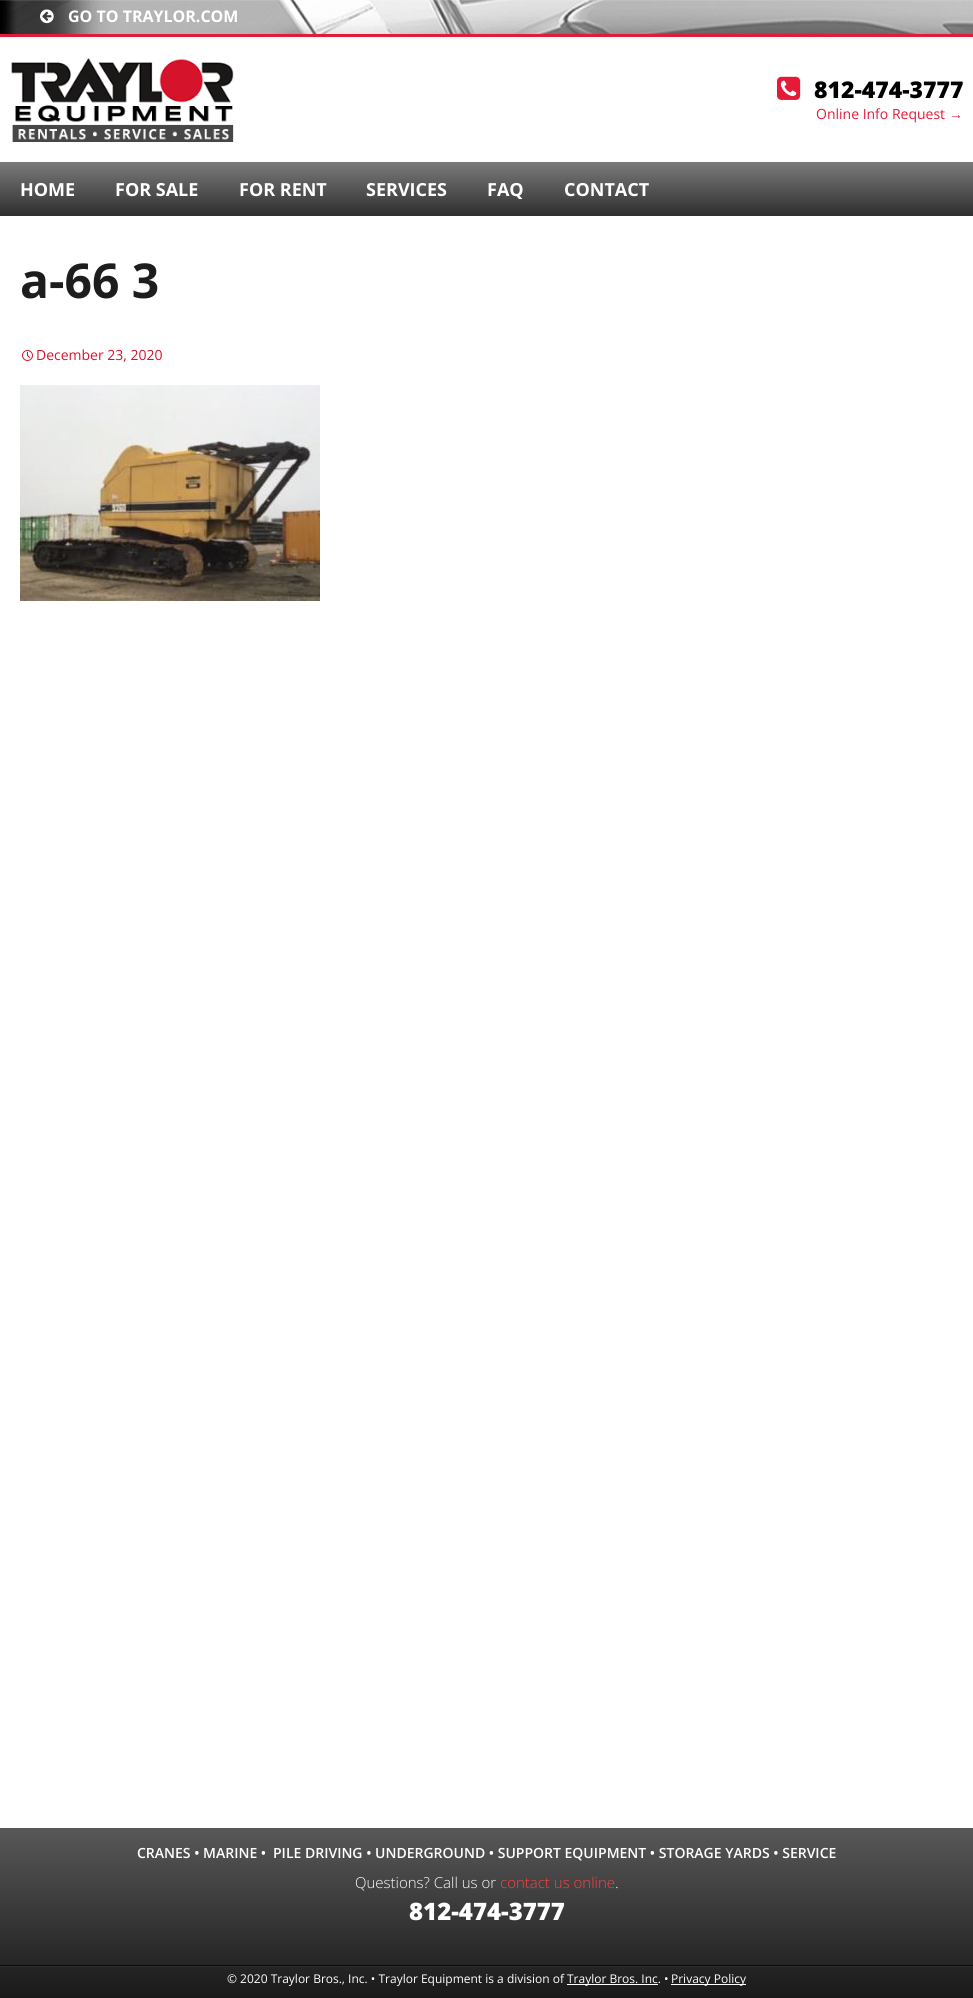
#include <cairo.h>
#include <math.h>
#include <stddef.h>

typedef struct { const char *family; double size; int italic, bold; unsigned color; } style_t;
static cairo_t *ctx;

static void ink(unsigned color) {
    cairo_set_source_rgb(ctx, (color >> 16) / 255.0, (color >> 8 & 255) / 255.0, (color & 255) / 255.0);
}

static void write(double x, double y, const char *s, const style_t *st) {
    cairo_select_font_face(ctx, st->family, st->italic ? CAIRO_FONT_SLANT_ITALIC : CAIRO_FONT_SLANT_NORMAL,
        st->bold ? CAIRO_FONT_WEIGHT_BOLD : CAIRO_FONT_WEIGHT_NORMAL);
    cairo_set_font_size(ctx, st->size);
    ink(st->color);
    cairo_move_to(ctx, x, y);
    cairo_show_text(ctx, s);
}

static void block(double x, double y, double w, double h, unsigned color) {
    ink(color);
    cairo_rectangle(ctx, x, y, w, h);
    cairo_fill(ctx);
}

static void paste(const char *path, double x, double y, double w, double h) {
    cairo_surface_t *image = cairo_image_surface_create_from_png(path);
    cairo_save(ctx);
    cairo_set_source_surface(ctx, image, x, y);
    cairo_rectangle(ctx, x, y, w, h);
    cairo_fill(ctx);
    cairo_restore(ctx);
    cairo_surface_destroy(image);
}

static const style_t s1 = {"Open Sans", 16, 0, 1, 0xffffff};
static const style_t s2 = {"Open Sans ExtraBold", 23, 0, 0, 0x000000};
static const style_t s3 = {"Open Sans", 14, 0, 0, 0xe51a38};
static const style_t s4 = {"Liberation Sans", 14, 0, 0, 0xe51a38};
static const style_t s5 = {"Open Sans", 18, 0, 1, 0xffffff};
static const style_t s6 = {"Open Sans", 48, 0, 1, 0x1d1d1d};
static const style_t s7 = {"Open Sans", 14, 0, 0, 0xd6142c};
static const style_t s8 = {"Open Sans SemiBold", 14, 0, 0, 0xffffff};
static const style_t s9 = {"Open Sans Light", 15, 0, 0, 0xffffff};
static const style_t s10 = {"Open Sans Light", 15, 0, 0, 0xff4040};
static const style_t s11 = {"Open Sans ExtraBold", 24, 0, 0, 0xffffff};
static const style_t s12 = {"Open Sans", 12, 0, 0, 0xffffff};

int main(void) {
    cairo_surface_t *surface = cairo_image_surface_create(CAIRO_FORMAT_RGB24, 973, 1998);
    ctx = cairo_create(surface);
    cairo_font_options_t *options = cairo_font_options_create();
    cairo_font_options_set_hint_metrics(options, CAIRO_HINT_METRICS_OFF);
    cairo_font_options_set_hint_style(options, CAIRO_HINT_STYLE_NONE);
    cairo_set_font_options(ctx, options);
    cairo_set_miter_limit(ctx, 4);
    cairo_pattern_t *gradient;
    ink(0xffffff);
    cairo_paint(ctx);
    block(0, 34, 973, 3, 0xe51a38);
    paste("pic1.png", 0, 0, 973, 34);
    paste("pic2.png", 40, 9, 14, 15);
    write(68, 22, "GO TO TRAYLOR.COM", &s1);
    paste("pic3.png", 11, 58, 223, 84);
    paste("pic4.png", 777, 76, 24, 24);
    write(814, 98, "812-474-3777", &s2);
    write(816, 119, "Online Info Request", &s3);
    write(949, 119, "→", &s4);
    gradient = cairo_pattern_create_linear(487, 162, 487, 216);
    cairo_pattern_add_color_stop_rgba(gradient, 0, 0.482, 0.482, 0.482, 1);
    cairo_pattern_add_color_stop_rgba(gradient, 1, 0.18, 0.18, 0.18, 1);
    cairo_set_source(ctx, gradient);
    cairo_pattern_destroy(gradient);
    cairo_rectangle(ctx, 0, 162, 973, 54);
    cairo_fill(ctx);
    write(20, 196, "HOME", &s5);
    write(115, 196, "FOR SALE", &s5);
    write(239, 196, "FOR RENT", &s5);
    write(366, 196, "SERVICES", &s5);
    write(487, 196, "FAQ", &s5);
    write(564, 196, "CONTACT", &s5);
    write(20, 298, "a-66 3", &s6);
    paste("pic5.png", 22, 350, 11, 11);
    write(36, 360, "December 23, 2020", &s7);
    paste("pic6.png", 20, 385, 300, 216);
    gradient = cairo_pattern_create_linear(487, 1828, 487, 1998);
    cairo_pattern_add_color_stop_rgba(gradient, 0, 0.345, 0.345, 0.345, 1);
    cairo_pattern_add_color_stop_rgba(gradient, 1, 0.098, 0.098, 0.098, 1);
    cairo_set_source(ctx, gradient);
    cairo_pattern_destroy(gradient);
    cairo_rectangle(ctx, 0, 1828, 973, 170);
    cairo_fill(ctx);
    block(0, 1965, 973, 1, 0x0a0a0a);
    write(137, 1858, "CRANES • MARINE •", &s8);
    write(273, 1858, "PILE DRIVING • UNDERGROUND • SUPPORT EQUIPMENT • STORAGE YARDS • SERVICE", &s8);
    write(355, 1888, "Questions? Call us or", &s9);
    write(500, 1888, "contact us online", &s10);
    write(615, 1888, ".", &s9);
    write(409, 1920, "812-474-3777", &s11);
    block(0, 1966, 973, 1, 0x2d2d2d);
    write(227, 1983, "© 2020 Traylor Bros., Inc. • Traylor Equipment is a division of", &s12);
    block(567, 1984, 91, 1, 0xffffff);
    write(567, 1983, "Traylor Bros. Inc. •", &s12);
    block(671, 1984, 75, 1, 0xffffff);
    write(671, 1983, "Privacy Policy", &s12);
    cairo_surface_write_to_png(surface, "screenshot.png");
    cairo_font_options_destroy(options);
    cairo_destroy(ctx);
    cairo_surface_destroy(surface);
    return 0;
}
